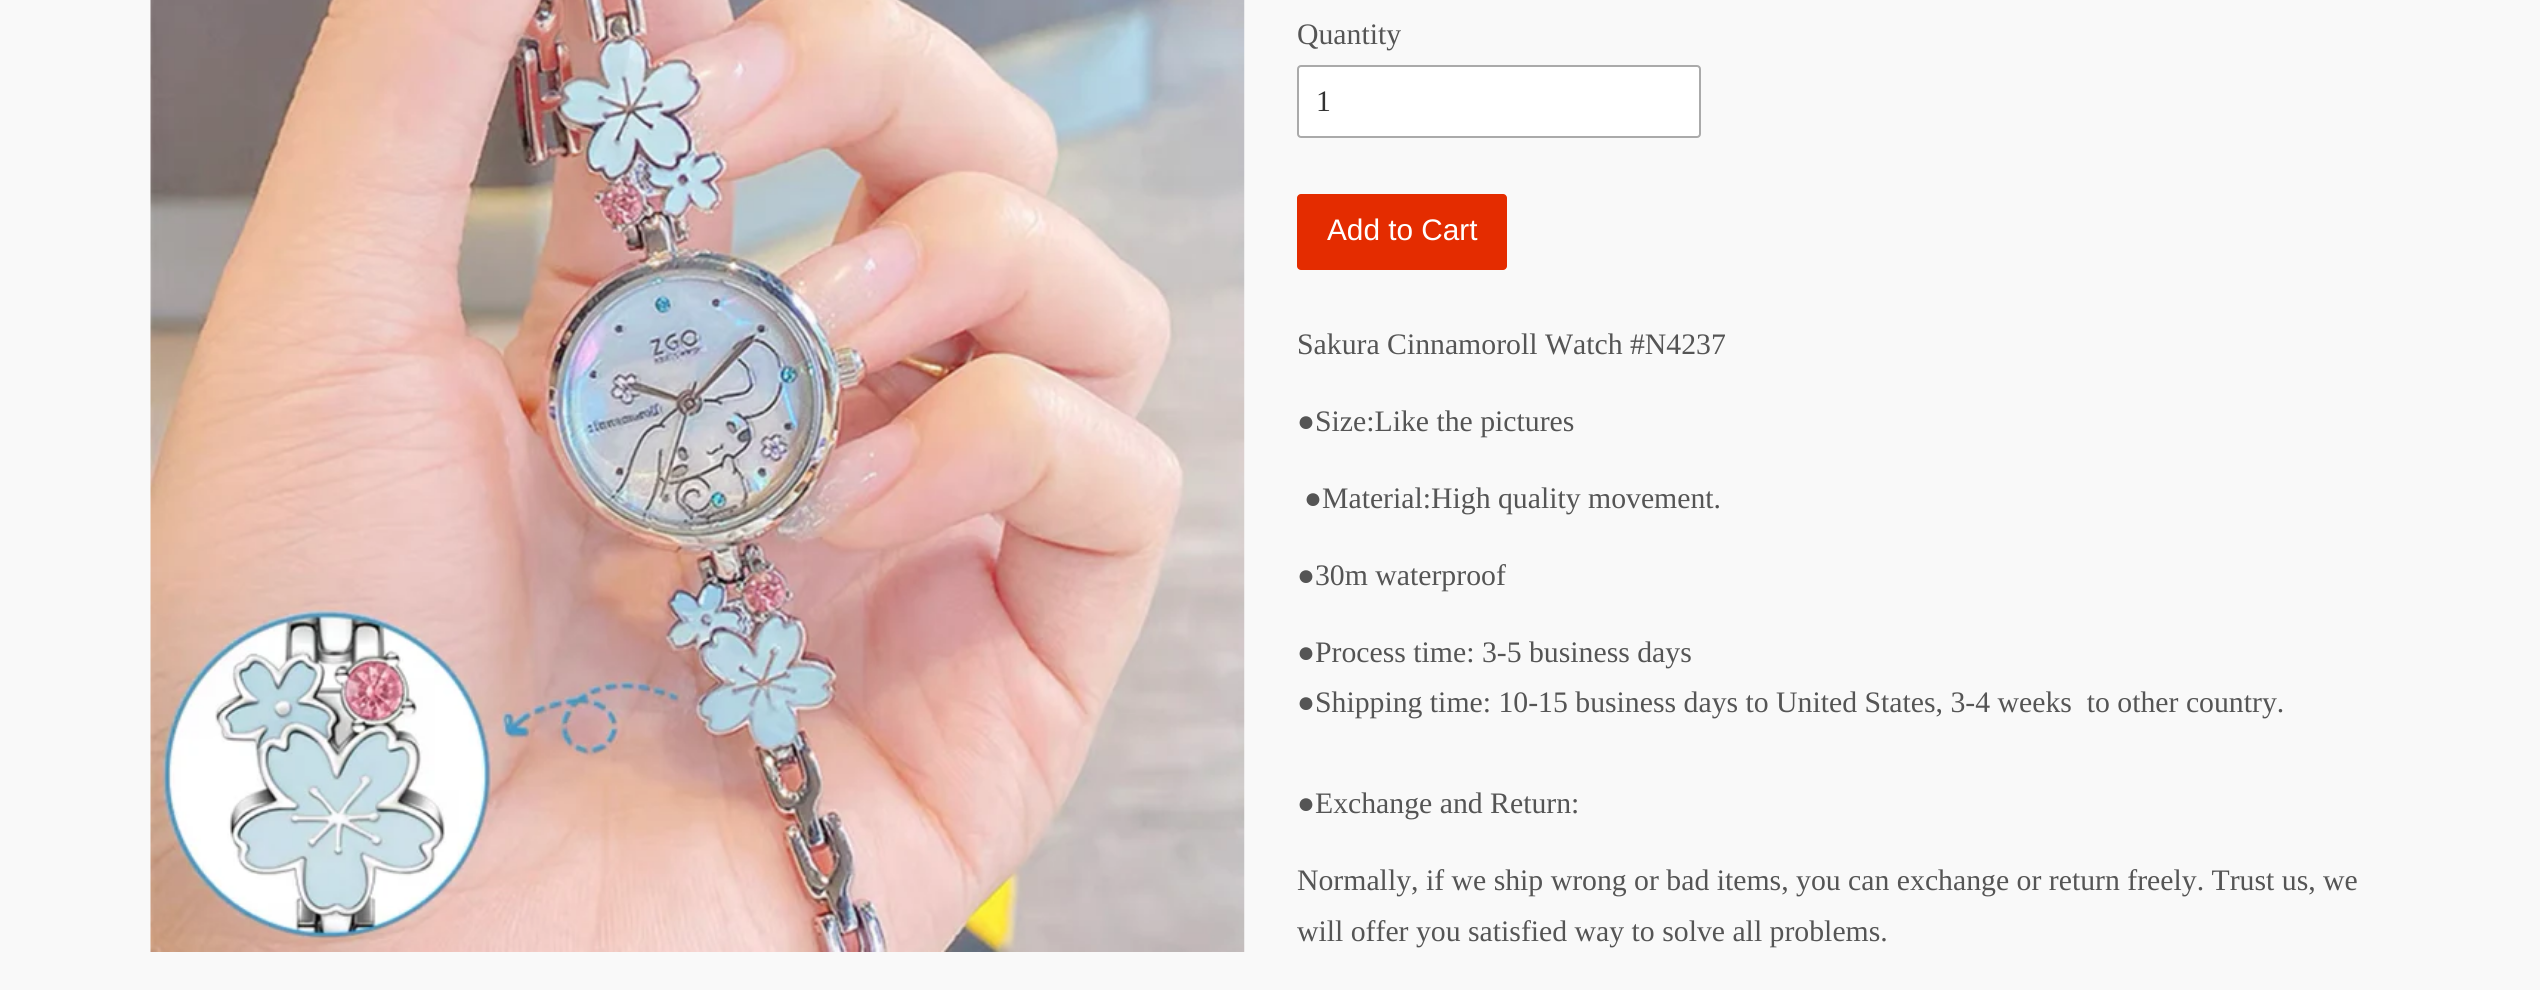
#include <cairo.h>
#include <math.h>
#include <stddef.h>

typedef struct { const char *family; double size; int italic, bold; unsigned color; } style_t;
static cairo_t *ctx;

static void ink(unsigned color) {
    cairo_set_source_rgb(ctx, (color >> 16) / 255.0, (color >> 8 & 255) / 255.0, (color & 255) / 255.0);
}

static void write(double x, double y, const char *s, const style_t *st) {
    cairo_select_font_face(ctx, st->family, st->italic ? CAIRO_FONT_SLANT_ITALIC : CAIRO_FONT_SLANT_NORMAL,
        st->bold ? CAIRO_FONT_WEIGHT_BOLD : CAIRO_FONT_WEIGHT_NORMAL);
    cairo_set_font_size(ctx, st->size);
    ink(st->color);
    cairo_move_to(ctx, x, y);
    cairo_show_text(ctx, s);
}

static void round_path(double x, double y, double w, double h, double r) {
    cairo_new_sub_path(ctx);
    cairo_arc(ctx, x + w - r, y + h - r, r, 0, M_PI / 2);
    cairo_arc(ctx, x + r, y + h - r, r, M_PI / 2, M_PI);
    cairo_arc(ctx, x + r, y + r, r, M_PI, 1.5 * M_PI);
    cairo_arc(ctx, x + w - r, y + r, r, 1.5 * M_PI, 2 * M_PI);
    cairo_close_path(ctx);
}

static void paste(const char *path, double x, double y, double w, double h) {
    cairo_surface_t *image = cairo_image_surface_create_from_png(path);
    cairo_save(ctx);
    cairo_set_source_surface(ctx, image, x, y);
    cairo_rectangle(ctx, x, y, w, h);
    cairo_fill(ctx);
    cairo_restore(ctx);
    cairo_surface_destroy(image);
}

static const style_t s1 = {"Liberation Serif", 29.75, 0, 0, 0x555555};
static const style_t s2 = {"Liberation Serif", 29.75, 0, 0, 0x333333};
static const style_t s3 = {"Liberation Sans", 29.75, 0, 0, 0xffffff};

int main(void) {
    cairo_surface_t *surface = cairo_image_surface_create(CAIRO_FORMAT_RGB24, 2540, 990);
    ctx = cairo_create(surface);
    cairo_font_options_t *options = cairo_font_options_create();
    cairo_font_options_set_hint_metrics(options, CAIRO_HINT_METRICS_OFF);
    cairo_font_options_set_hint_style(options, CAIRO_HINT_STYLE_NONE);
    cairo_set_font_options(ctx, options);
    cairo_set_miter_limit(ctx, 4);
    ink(0xf9f9f9);
    cairo_paint(ctx);
    paste("pic1.png", 150, 0, 1095, 952);
    write(1297, 44, "Quantity", &s1);
    ink(0xffffff);
    round_path(1298, 66, 402, 71, 3);
    cairo_fill_preserve(ctx);
    ink(0xaaaaaa);
    cairo_stroke(ctx);
    write(1316, 111, "1", &s2);
    ink(0xe42c00);
    round_path(1297, 194, 210, 76, 4);
    cairo_fill(ctx);
    write(1327, 240, "Add to Cart", &s3);
    write(1297, 354, "Sakura Cinnamoroll Watch #N4237", &s1);
    write(1297, 431, "●Size:Like the pictures", &s1);
    write(1304, 508, "●Material:High quality movement.", &s1);
    write(1297, 585, "●30m waterproof", &s1);
    write(1297, 662, "●Process time: 3-5 business days", &s1);
    write(1297, 712, "●Shipping time: 10-15 business days to United States, 3-4 weeks  to other country.", &s1);
    write(1297, 813, "●Exchange and Return:", &s1);
    write(1297, 890, "Normally, if we ship wrong or bad items, you can exchange or return freely. Trust us, we", &s1);
    write(1297, 941, "will offer you satisfied way to solve all problems.", &s1);
    cairo_surface_write_to_png(surface, "screenshot.png");
    cairo_font_options_destroy(options);
    cairo_destroy(ctx);
    cairo_surface_destroy(surface);
    return 0;
}
